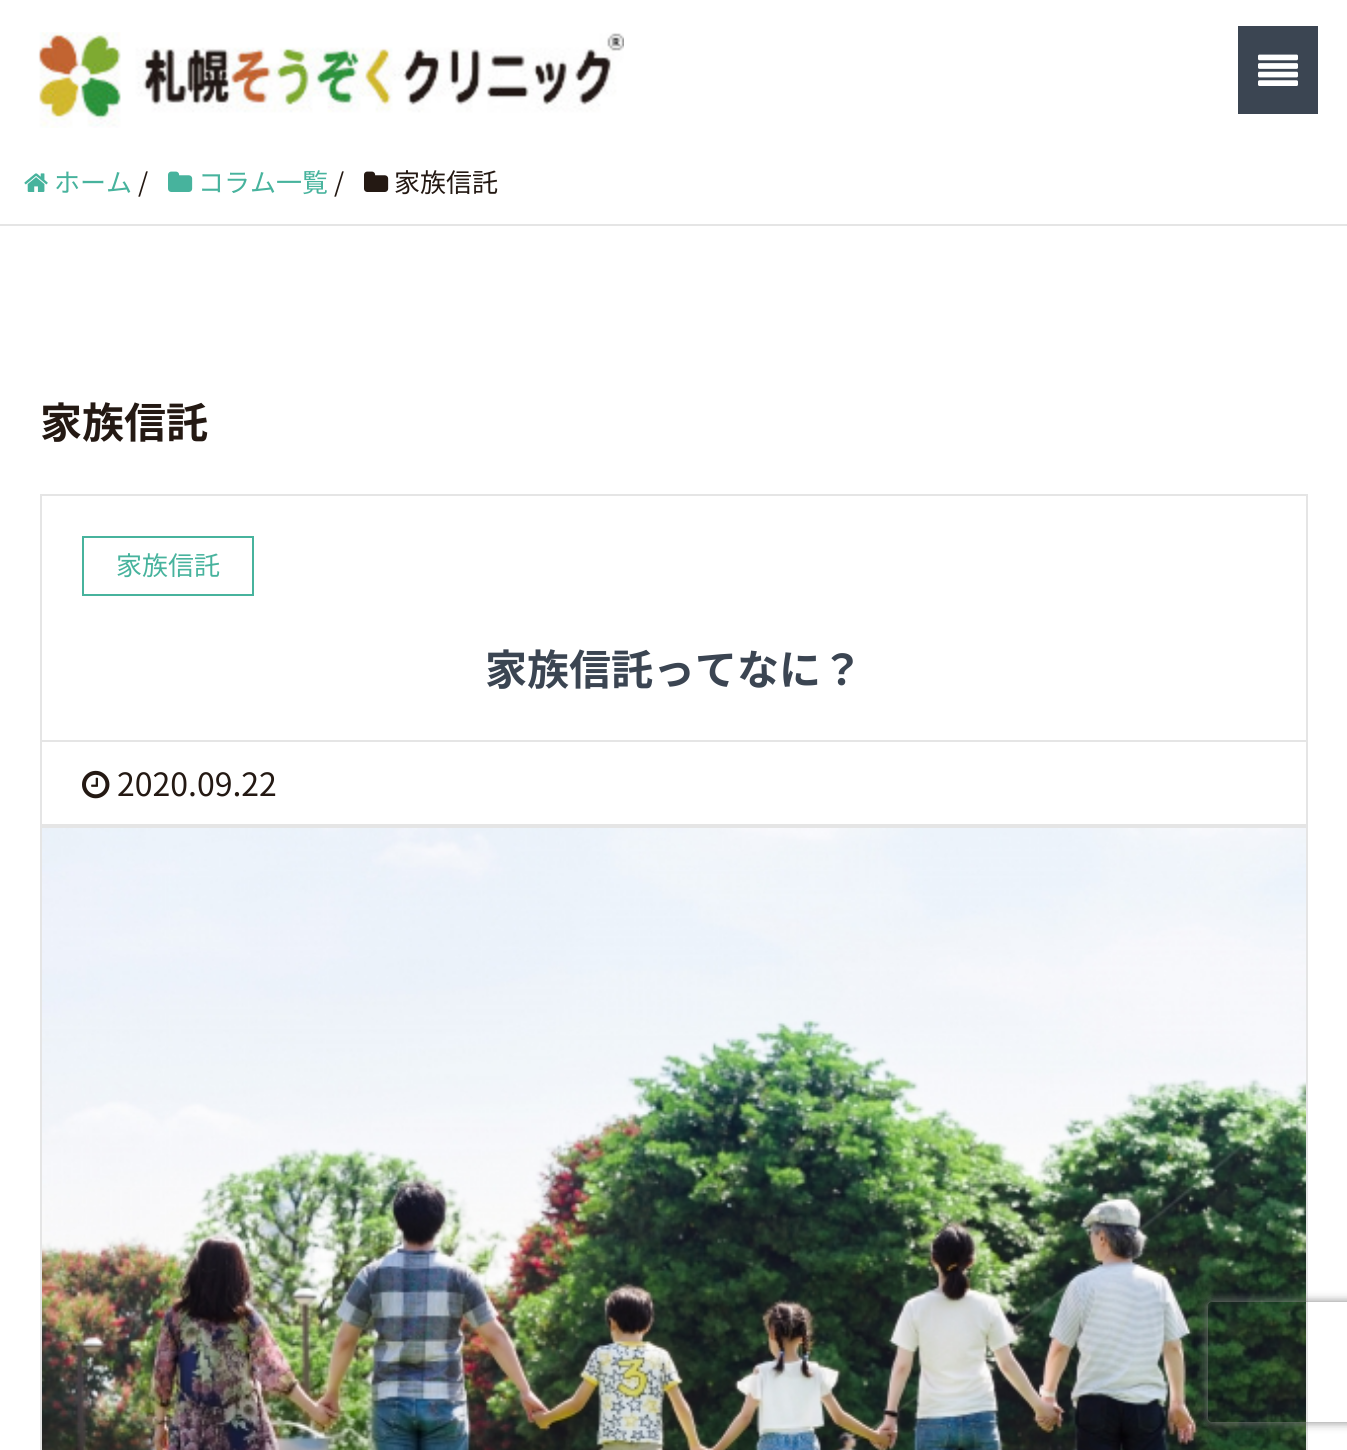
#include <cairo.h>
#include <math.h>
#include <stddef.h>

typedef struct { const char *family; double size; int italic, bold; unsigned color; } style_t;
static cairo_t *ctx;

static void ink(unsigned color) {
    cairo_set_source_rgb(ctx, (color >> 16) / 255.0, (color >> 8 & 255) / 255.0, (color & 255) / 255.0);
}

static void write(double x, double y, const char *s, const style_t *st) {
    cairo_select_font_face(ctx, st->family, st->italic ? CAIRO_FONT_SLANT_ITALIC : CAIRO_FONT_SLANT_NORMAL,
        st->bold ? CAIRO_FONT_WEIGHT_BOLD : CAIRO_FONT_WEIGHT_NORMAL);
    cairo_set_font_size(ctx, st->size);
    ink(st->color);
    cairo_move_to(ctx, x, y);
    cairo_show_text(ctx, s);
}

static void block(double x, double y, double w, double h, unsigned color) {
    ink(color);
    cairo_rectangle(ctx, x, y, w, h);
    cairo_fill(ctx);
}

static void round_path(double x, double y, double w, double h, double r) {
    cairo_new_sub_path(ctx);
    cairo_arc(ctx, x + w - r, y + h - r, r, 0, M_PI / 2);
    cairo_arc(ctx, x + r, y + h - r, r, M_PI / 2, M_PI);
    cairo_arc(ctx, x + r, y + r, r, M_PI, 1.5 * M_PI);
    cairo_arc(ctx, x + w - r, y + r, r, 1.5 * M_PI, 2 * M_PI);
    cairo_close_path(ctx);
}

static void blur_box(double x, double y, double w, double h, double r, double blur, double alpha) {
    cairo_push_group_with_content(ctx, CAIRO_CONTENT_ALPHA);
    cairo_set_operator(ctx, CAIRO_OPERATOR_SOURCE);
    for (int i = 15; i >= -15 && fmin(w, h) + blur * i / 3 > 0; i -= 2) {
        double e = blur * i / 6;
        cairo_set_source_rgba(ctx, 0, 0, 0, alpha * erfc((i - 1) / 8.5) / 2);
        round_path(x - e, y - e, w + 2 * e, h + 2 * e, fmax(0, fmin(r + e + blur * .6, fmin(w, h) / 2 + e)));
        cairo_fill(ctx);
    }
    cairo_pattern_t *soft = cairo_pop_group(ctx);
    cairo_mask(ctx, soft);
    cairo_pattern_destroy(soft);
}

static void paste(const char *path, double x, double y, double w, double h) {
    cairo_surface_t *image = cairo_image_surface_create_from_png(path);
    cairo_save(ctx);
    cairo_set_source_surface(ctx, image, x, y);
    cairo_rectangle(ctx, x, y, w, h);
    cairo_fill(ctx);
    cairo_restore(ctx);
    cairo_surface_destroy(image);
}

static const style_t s1 = {"Noto Sans JP", 26, 0, 0, 0x47b39d};
static const style_t s2 = {"Noto Sans JP", 26, 0, 0, 0x241913};
static const style_t s3 = {"Noto Sans JP", 42, 0, 1, 0x241913};
static const style_t s4 = {"Noto Sans JP", 42, 0, 1, 0x3b4552};
static const style_t s5 = {"Noto Sans JP", 32, 0, 0, 0x241913};

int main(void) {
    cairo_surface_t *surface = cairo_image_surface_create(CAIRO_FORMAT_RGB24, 1347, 1450);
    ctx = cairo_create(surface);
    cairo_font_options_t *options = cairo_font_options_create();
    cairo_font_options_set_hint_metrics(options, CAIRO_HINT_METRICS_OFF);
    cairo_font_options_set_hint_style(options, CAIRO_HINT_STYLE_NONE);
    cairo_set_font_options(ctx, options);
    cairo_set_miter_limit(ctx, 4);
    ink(0xffffff);
    cairo_paint(ctx);
    paste("pic1.png", 38, 32, 586, 96);
    block(1238, 26, 80, 88, 0x3b4552);
    paste("pic2.png", 1258, 54, 40, 32);
    block(0, 224, 1347, 2, 0xe5e5e5);
    paste("pic3.png", 24, 173, 24, 19);
    write(54, 192, "ホーム", &s1);
    write(138, 192, "/", &s2);
    paste("pic4.png", 168, 171, 25, 21);
    write(198, 192, "コラム一覧", &s1);
    write(334, 192, "/", &s2);
    paste("pic5.png", 364, 171, 25, 21);
    write(394, 192, "家族信託", &s2);
    write(40, 438, "家族信託", &s3);
    cairo_rectangle(ctx, 41, 495, 1266, 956);
    ink(0xe5e5e5);
    cairo_stroke(ctx);
    block(42, 740, 1264, 2, 0xe5e5e5);
    cairo_rectangle(ctx, 83, 537, 170, 58);
    ink(0x47b39d);
    cairo_stroke(ctx);
    write(116, 575, "家族信託", &s1);
    write(485, 685, "家族信託ってなに？", &s4);
    block(42, 824, 1264, 4, 0xe5e5e5);
    paste("pic6.png", 82, 770, 28, 29);
    write(117, 796, "2020.09.22", &s5);
    paste("pic7.png", 42, 828, 1264, 622);
    cairo_save(ctx);
    cairo_set_fill_rule(ctx, CAIRO_FILL_RULE_EVEN_ODD);
    cairo_new_path(ctx);
    cairo_move_to(ctx, 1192, 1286);
    cairo_line_to(ctx, 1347, 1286);
    cairo_line_to(ctx, 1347, 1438);
    cairo_line_to(ctx, 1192, 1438);
    cairo_close_path(ctx);
    cairo_move_to(ctx, 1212, 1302);
    cairo_line_to(ctx, 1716, 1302);
    cairo_curve_to(ctx, 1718, 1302, 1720, 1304, 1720, 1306);
    cairo_line_to(ctx, 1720, 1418);
    cairo_curve_to(ctx, 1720, 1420, 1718, 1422, 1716, 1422);
    cairo_line_to(ctx, 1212, 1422);
    cairo_curve_to(ctx, 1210, 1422, 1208, 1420, 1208, 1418);
    cairo_line_to(ctx, 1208, 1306);
    cairo_curve_to(ctx, 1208, 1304, 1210, 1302, 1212, 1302);
    cairo_close_path(ctx);
    cairo_clip(ctx);
    ink(0x808080);
    blur_box(1208, 1302, 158, 120, 4, 5, 1);
    cairo_restore(ctx);
    cairo_surface_write_to_png(surface, "screenshot.png");
    cairo_font_options_destroy(options);
    cairo_destroy(ctx);
    cairo_surface_destroy(surface);
    return 0;
}
